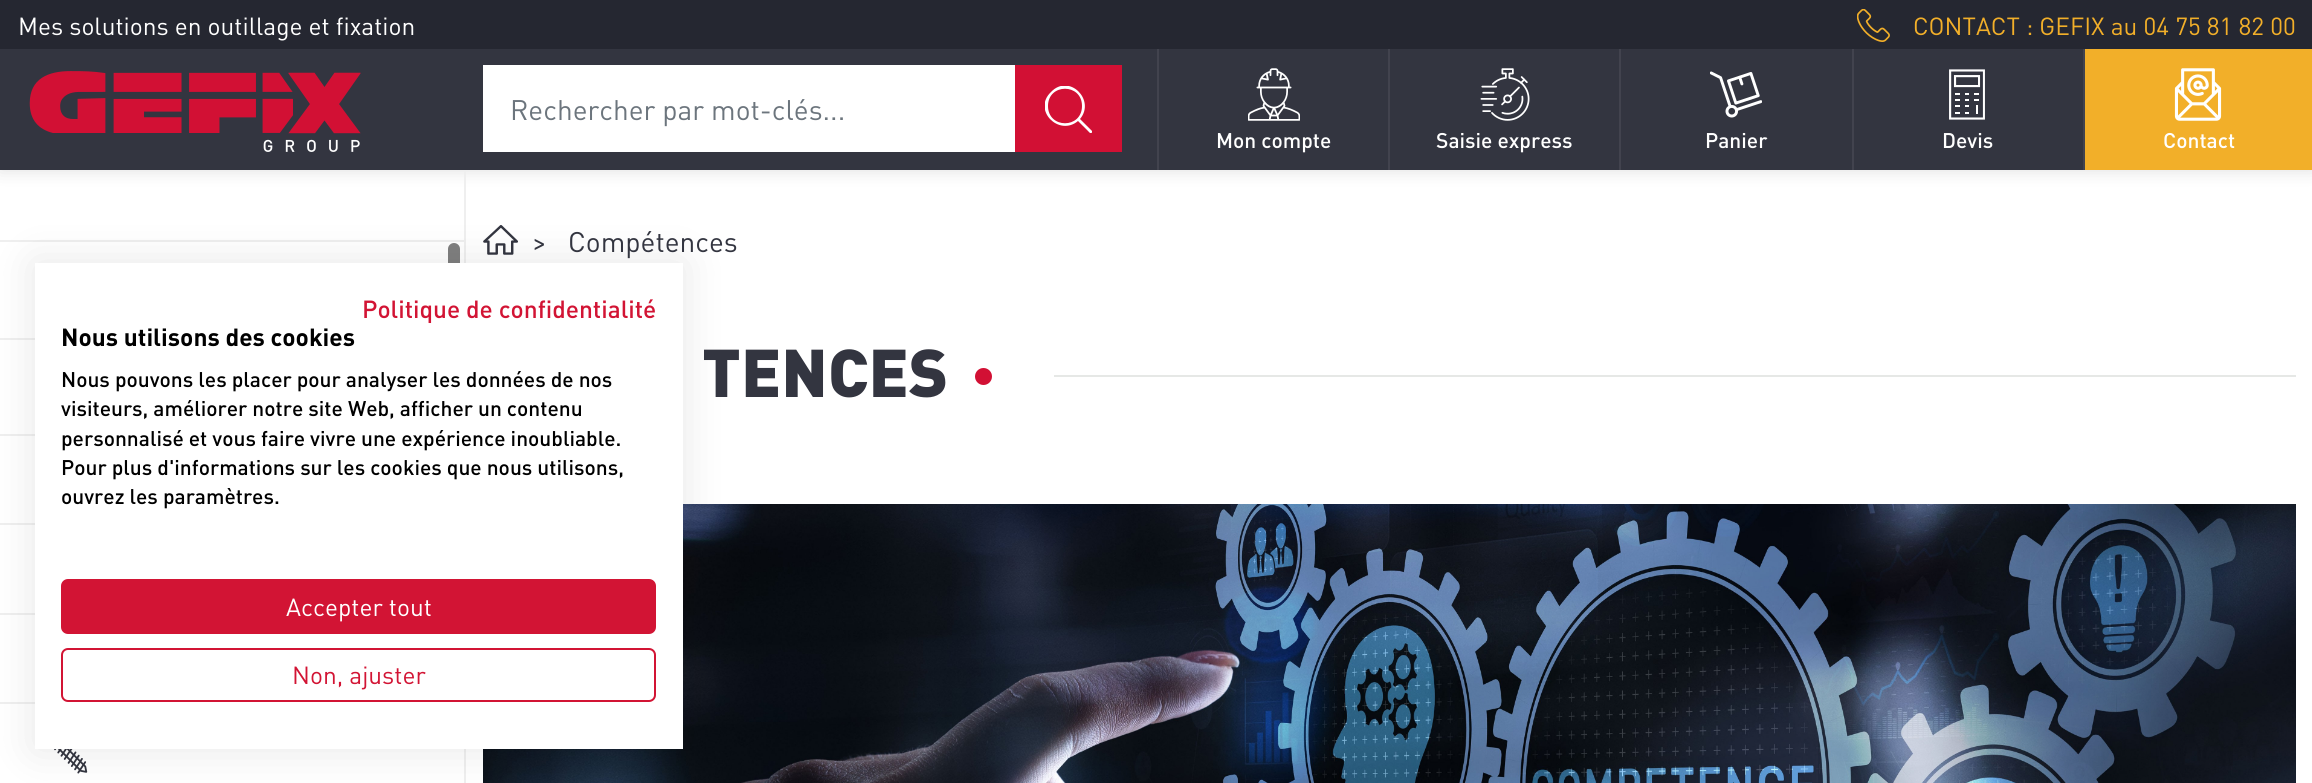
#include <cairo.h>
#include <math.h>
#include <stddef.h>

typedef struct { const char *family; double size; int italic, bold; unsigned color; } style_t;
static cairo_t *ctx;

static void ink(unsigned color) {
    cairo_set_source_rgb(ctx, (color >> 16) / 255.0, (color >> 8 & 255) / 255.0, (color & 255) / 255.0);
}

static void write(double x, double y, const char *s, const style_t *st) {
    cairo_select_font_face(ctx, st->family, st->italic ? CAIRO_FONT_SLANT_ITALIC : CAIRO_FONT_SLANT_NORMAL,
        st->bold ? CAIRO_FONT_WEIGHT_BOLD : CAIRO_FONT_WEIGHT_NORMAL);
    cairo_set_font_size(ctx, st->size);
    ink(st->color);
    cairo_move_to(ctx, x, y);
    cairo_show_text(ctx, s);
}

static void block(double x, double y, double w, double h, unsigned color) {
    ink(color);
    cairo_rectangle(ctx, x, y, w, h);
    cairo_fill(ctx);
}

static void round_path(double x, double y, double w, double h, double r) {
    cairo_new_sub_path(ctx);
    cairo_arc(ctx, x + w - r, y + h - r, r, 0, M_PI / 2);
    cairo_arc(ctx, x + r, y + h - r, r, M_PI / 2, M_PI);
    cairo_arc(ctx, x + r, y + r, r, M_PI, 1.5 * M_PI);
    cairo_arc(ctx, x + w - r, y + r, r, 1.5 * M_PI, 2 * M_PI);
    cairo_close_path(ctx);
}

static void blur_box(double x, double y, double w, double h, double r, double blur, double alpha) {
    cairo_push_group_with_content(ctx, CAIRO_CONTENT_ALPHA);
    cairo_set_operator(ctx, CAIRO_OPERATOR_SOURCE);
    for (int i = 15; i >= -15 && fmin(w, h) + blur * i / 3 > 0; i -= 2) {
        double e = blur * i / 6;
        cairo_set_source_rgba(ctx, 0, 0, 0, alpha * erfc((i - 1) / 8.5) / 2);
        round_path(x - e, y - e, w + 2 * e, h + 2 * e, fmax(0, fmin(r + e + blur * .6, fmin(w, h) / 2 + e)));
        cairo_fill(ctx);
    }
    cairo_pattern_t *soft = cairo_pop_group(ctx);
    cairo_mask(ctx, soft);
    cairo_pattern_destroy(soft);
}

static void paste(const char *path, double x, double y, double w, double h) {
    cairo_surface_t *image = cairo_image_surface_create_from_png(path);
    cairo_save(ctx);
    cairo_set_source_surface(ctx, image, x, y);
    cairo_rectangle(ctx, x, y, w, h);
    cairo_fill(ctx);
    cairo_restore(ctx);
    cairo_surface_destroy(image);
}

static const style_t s1 = {"DIN", 24.5, 0, 0, 0xffffff};
static const style_t s2 = {"DIN", 24.5, 0, 0, 0xf2af29};
static const style_t s3 = {"DIN", 28, 0, 0, 0x6c757d};
static const style_t s4 = {"DIN Medium", 21, 0, 0, 0xffffff};
static const style_t s5 = {"DIN Medium", 24.5, 0, 0, 0xd21434};
static const style_t s6 = {"DIN", 24.5, 0, 1, 0x000000};
static const style_t s7 = {"DIN Medium", 21, 0, 0, 0x000000};
static const style_t s8 = {"DIN", 24.5, 0, 0, 0xd21434};
static const style_t s9 = {"DIN", 28, 0, 0, 0x333540};
static const style_t s10 = {"DIN Black", 66.5, 0, 0, 0x333540};

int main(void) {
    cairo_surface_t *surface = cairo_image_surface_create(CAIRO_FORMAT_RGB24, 2312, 783);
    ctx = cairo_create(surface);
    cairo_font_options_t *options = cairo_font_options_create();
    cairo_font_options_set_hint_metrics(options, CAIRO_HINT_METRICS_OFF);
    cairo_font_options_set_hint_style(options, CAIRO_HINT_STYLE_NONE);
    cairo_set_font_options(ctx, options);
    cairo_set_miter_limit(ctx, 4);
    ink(0xffffff);
    cairo_paint(ctx);
    ink(0x000000);
    blur_box(0, 0, 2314, 170, 0, 9, 0.13);
    block(0, 49, 2083, 121, 0x333540);
    block(0, 0, 2312, 49, 0x252731);
    write(18, 35, "Mes solutions en outillage et fixation", &s1);
    paste("pic1.png", 1857, 9, 33, 33);
    write(1913, 35, "CONTACT : GEFIX au 04 75 81 82 00", &s2);
    paste("pic2.png", 29, 71, 332, 81);
    block(483, 65, 532, 87, 0xffffff);
    write(510, 120, "Rechercher par mot-clés...", &s3);
    block(1015, 65, 107, 87, 0xd21034);
    cairo_save(ctx);
    cairo_rectangle(ctx, 1045, 86, 47, 47);
    cairo_clip(ctx);
    ink(0xffffff);
    cairo_new_path(ctx);
    cairo_move_to(ctx, 1092, 131);
    cairo_line_to(ctx, 1080, 119);
    cairo_curve_to(ctx, 1096, 100, 1069, 73, 1051, 92);
    cairo_curve_to(ctx, 1032, 110, 1059, 137, 1078, 121);
    cairo_line_to(ctx, 1090, 133);
    cairo_curve_to(ctx, 1091, 134, 1093, 132, 1092, 131);
    cairo_close_path(ctx);
    cairo_move_to(ctx, 1048, 106);
    cairo_curve_to(ctx, 1048, 83, 1082, 83, 1082, 106);
    cairo_curve_to(ctx, 1082, 129, 1048, 129, 1048, 106);
    cairo_close_path(ctx);
    cairo_fill(ctx);
    cairo_restore(ctx);
    block(1157, 49, 2, 121, 0x42434e);
    paste("pic3.png", 1248, 68, 52, 53);
    write(1216, 148, "Mon compte", &s4);
    block(1388, 49, 2, 121, 0x42434e);
    paste("pic4.png", 1480, 68, 50, 53);
    write(1436, 148, "Saisie express", &s4);
    block(1619, 49, 2, 121, 0x42434e);
    paste("pic5.png", 1710, 71, 52, 47);
    write(1705, 148, "Panier", &s4);
    block(1852, 49, 2, 121, 0x42434e);
    paste("pic6.png", 1949, 69, 36, 51);
    write(1942, 148, "Devis", &s4);
    block(2085, 49, 227, 121, 0xf2af29);
    block(2083, 49, 2, 121, 0x42434e);
    paste("pic7.png", 2174, 68, 48, 53);
    write(2163, 148, "Contact", &s4);
    block(464, 170, 2, 613, 0xefefef);
    block(0, 240, 464, 2, 0xefefef);
    block(0, 338, 35, 2, 0xefefef);
    block(0, 434, 35, 2, 0xefefef);
    block(0, 523, 35, 2, 0xefefef);
    block(0, 613, 35, 2, 0xefefef);
    block(0, 702, 35, 2, 0xefefef);
    paste("pic8.png", 54, 749, 34, 25);
    cairo_set_source_rgba(ctx, 0, 0, 0, 0.5);
    round_path(448, 243, 12, 370, 6);
    cairo_fill(ctx);
    paste("pic9.png", 483, 225, 35, 30);
    paste("pic10.png", 483, 504, 1813, 279);
    ink(0x000000);
    blur_box(35, 263, 648, 486, 0, 21, 0.1);
    block(35, 263, 648, 486, 0xffffff);
    write(362, 318, "Politique de confidentialité", &s5);
    write(61, 346, "Nous utilisons des cookies", &s6);
    write(61, 387, "Nous pouvons les placer pour analyser les données de nos", &s7);
    write(61, 416, "visiteurs, améliorer notre site Web, afficher un contenu", &s7);
    write(61, 446, "personnalisé et vous faire vivre une expérience inoubliable.", &s7);
    write(61, 475, "Pour plus d'informations sur les cookies que nous utilisons,", &s7);
    write(61, 504, "ouvrez les paramètres.", &s7);
    ink(0xd21434);
    round_path(62, 580, 593, 53, 6);
    cairo_fill_preserve(ctx);
    cairo_stroke(ctx);
    write(286, 616, "Accepter tout", &s1);
    round_path(62, 649, 593, 52, 6);
    ink(0xd21434);
    cairo_stroke(ctx);
    write(292, 684, "Non, ajuster", &s8);
    write(532, 252, ">", &s9);
    write(568, 252, "Compétences", &s9);
    write(702, 397, "TENCES", &s10);
    ink(0xd21034);
    cairo_new_path(ctx);
    cairo_arc(ctx, 983.5, 376.5, 8.5, 0, 2 * M_PI);
    cairo_fill(ctx);
    block(1054, 375, 1242, 2, 0xe6e8e6);
    cairo_surface_write_to_png(surface, "screenshot.png");
    cairo_font_options_destroy(options);
    cairo_destroy(ctx);
    cairo_surface_destroy(surface);
    return 0;
}
